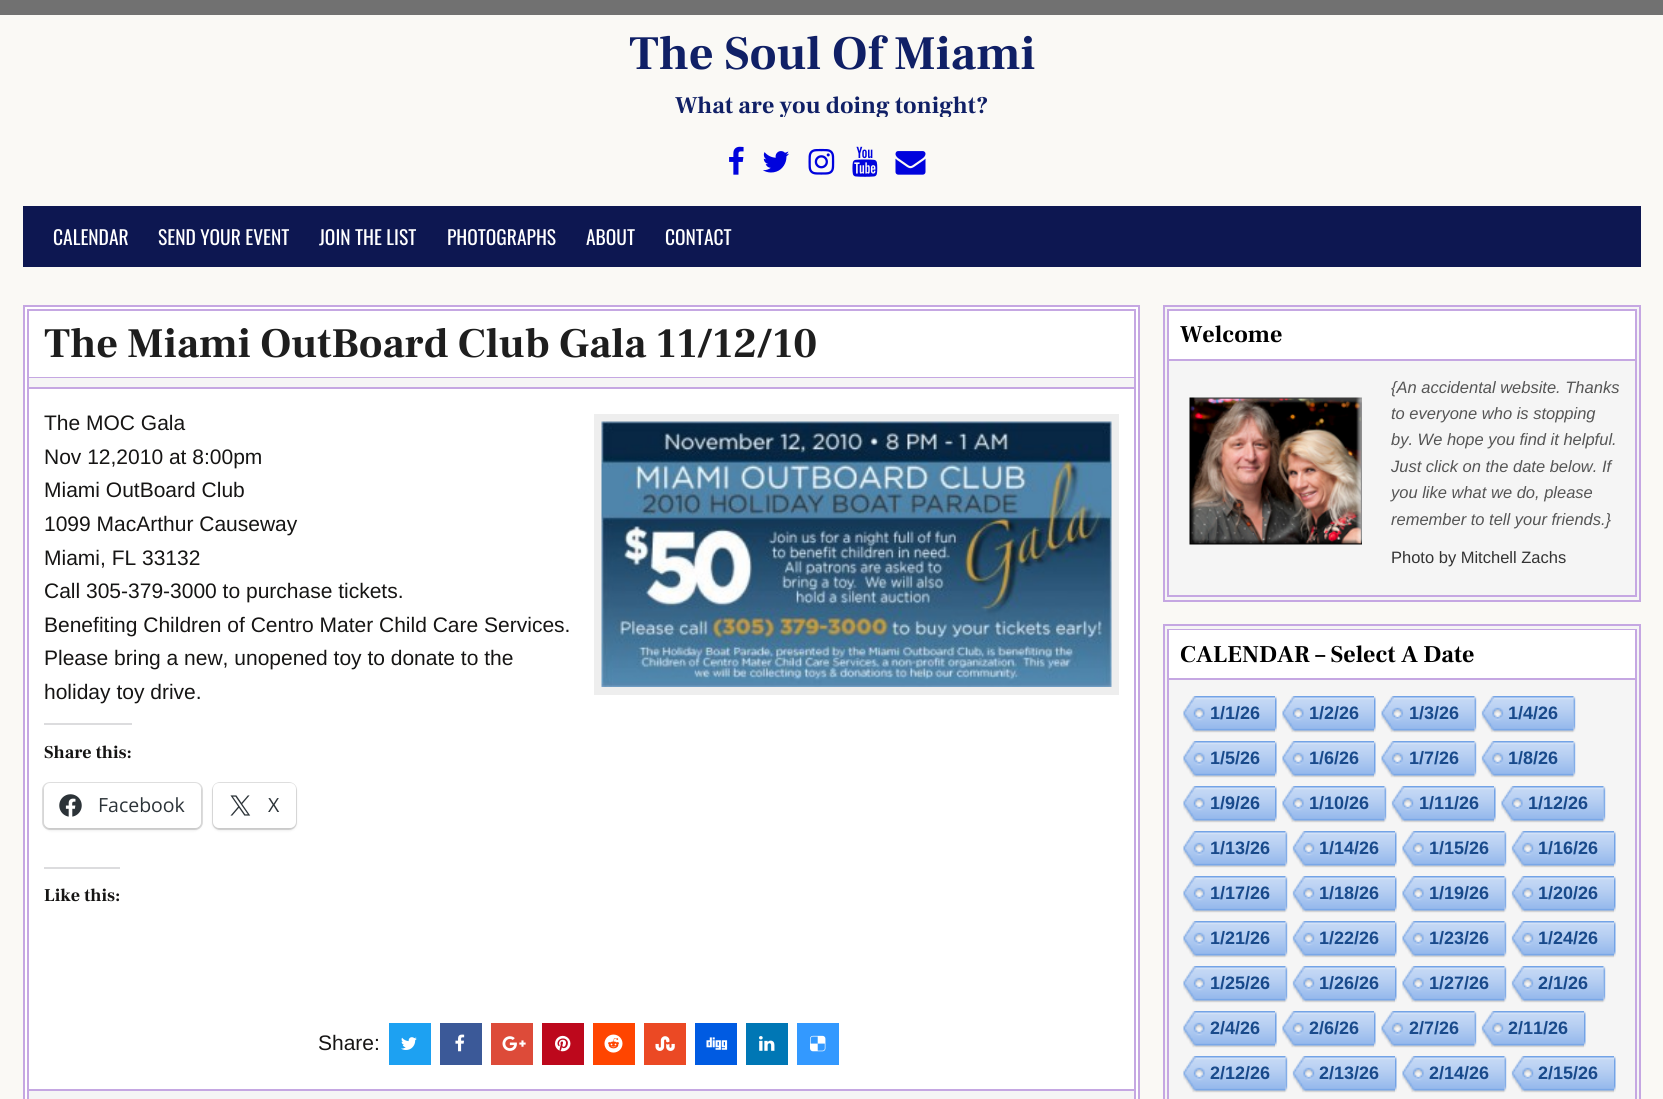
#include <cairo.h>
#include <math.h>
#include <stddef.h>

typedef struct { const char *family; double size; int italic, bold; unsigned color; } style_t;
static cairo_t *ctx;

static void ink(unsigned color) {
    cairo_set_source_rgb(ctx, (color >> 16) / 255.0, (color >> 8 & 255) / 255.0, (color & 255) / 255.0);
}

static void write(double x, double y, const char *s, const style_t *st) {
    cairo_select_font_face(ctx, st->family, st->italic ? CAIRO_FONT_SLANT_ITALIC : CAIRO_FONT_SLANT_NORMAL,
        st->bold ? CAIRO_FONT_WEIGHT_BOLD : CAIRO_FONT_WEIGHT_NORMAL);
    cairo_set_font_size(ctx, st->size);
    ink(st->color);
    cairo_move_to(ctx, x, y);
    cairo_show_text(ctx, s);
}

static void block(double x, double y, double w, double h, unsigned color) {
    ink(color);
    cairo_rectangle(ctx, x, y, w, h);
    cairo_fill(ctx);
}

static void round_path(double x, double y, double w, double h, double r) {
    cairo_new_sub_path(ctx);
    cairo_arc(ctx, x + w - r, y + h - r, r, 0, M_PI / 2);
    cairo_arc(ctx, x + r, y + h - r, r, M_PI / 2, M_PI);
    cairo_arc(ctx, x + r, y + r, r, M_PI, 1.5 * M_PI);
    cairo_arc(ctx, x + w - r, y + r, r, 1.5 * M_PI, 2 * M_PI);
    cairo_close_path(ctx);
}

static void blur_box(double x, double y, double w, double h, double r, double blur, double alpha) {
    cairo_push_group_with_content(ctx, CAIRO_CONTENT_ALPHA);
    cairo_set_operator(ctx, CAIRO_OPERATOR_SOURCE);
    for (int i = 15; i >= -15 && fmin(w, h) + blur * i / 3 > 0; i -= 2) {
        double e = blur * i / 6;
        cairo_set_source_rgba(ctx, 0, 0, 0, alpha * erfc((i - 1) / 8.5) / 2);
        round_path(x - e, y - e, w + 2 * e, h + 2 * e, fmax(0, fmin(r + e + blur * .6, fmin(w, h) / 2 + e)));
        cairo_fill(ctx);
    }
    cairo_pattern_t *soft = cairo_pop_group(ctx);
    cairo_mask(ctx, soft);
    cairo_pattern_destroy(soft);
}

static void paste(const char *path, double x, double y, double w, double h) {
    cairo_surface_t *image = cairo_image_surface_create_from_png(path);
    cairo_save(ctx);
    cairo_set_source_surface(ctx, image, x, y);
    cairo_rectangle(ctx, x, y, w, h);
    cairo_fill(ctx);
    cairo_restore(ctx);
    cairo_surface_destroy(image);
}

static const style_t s1 = {"Frank Ruhl Libre", 48, 0, 1, 0x102066};
static const style_t s2 = {"Frank Ruhl Libre", 24, 0, 1, 0x102066};
static const style_t s3 = {"Oswald", 19.5, 0, 0, 0xffffff};
static const style_t s4 = {"Frank Ruhl Libre", 42, 0, 1, 0x1e1e1e};
static const style_t s5 = {"Liberation Sans", 21, 0, 0, 0x161514};
static const style_t s6 = {"Frank Ruhl Libre", 18, 0, 1, 0x161514};
static const style_t s7 = {"Open Sans", 19.5, 0, 0, 0x2c3338};
static const style_t s8 = {"Frank Ruhl Libre", 24, 0, 1, 0x000000};
static const style_t s9 = {"Liberation Sans", 16.5, 1, 0, 0x555555};
static const style_t s10 = {"Liberation Sans", 16.5, 0, 0, 0x333333};
static const style_t s11 = {"Liberation Sans", 18, 0, 1, 0x194a8b};

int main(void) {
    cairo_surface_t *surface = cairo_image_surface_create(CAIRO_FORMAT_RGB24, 1663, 1099);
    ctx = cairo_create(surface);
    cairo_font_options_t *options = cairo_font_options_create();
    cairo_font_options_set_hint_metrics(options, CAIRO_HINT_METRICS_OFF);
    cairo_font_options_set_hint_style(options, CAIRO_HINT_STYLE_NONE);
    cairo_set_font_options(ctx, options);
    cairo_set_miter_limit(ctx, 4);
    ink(0x717171);
    cairo_paint(ctx);
    block(0, 15, 1663, 1084, 0xfaf9f5);
    write(629, 69, "The Soul Of Miami", &s1);
    cairo_save(ctx);
    cairo_rectangle(ctx, 23, 30, 1618, 87);
    cairo_clip(ctx);
    write(675, 113, "What are you doing tonight?", &s2);
    cairo_restore(ctx);
    paste("pic1.png", 729, 146, 15, 29);
    paste("pic2.png", 763, 151, 26, 22);
    paste("pic3.png", 808, 148, 27, 27);
    paste("pic4.png", 852, 146, 26, 31);
    paste("pic5.png", 895, 151, 31, 24);
    block(23, 206, 1618, 61, 0x0d1751);
    write(53, 245, "CALENDAR", &s3);
    write(158, 245, "SEND YOUR EVENT", &s3);
    write(319, 245, "JOIN THE LIST", &s3);
    write(447, 245, "PHOTOGRAPHS", &s3);
    write(586, 245, "ABOUT", &s3);
    write(665, 245, "CONTACT", &s3);
    cairo_rectangle(ctx, 24, 306, 1115, 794);
    cairo_fill_preserve(ctx);
    ink(0xc5a7e2);
    cairo_stroke(ctx);
    cairo_rectangle(ctx, 28, 310, 1107, 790);
    cairo_stroke(ctx);
    block(29, 377, 1105, 1, 0xc5a7e2);
    write(44, 357, "The Miami OutBoard Club Gala 11/12/10", &s4);
    block(29, 378, 1105, 9, 0xf5f5f5);
    block(29, 387, 1105, 2, 0xc5a7e2);
    write(44, 430, "The MOC Gala", &s5);
    block(594, 414, 525, 281, 0xeeeeee);
    paste("pic6.png", 601, 421, 511, 266);
    write(44, 464, "Nov 12,2010 at 8:00pm", &s5);
    write(44, 497, "Miami OutBoard Club", &s5);
    write(44, 531, "1099 MacArthur Causeway", &s5);
    write(44, 565, "Miami, FL 33132", &s5);
    write(44, 598, "Call 305-379-3000 to purchase tickets.", &s5);
    write(44, 632, "Benefiting Children of Centro Mater Child Care Services.", &s5);
    write(44, 665, "Please bring a new, unopened toy to donate to the", &s5);
    write(44, 699, "holiday toy drive.", &s5);
    block(44, 723, 88, 2, 0xdcdcde);
    write(44, 758, "Share this:", &s6);
    round_path(43, 783, 159, 46, 7);
    ink(0xe0e0e0);
    cairo_stroke(ctx);
    ink(0x000000);
    blur_box(44, 785, 157, 45, 6, 1.5, 0.12);
    ink(0xffffff);
    round_path(44, 783, 157, 45, 6);
    cairo_fill(ctx);
    paste("pic7.png", 59, 794, 23, 23);
    write(98, 812, "Facebook", &s7);
    round_path(213, 783, 83, 46, 7);
    ink(0xe0e0e0);
    cairo_stroke(ctx);
    ink(0x000000);
    blur_box(213, 785, 83, 45, 6, 1.5, 0.12);
    ink(0xffffff);
    round_path(213, 783, 83, 45, 6);
    cairo_fill(ctx);
    paste("pic8.png", 230, 795, 21, 21);
    write(268, 812, "X", &s7);
    block(44, 867, 76, 2, 0xdcdcde);
    write(44, 901, "Like this:", &s6);
    write(318, 1050, "Share:", &s5);
    block(389, 1023, 42, 42, 0x1da1f2);
    paste("pic9.png", 401, 1037, 16, 13);
    block(440, 1023, 42, 42, 0x3b5998);
    paste("pic10.png", 455, 1034, 10, 18);
    block(491, 1023, 42, 42, 0xdd4b39);
    paste("pic11.png", 502, 1036, 24, 15);
    block(542, 1023, 42, 42, 0xbd081c);
    paste("pic12.png", 555, 1035, 16, 17);
    block(593, 1023, 42, 42, 0xff4500);
    paste("pic13.png", 604, 1034, 19, 19);
    block(644, 1023, 42, 42, 0xeb4924);
    paste("pic14.png", 655, 1036, 20, 15);
    block(695, 1023, 42, 42, 0x005be2);
    paste("pic15.png", 706, 1037, 22, 13);
    block(746, 1023, 42, 42, 0x0077b5);
    paste("pic16.png", 759, 1036, 16, 15);
    block(797, 1023, 42, 42, 0x3399ff);
    paste("pic17.png", 810, 1035, 16, 17);
    block(29, 1091, 1105, 8, 0xf5f5f5);
    block(29, 1089, 1105, 2, 0xc5a7e2);
    ink(0xf5f5f5);
    cairo_rectangle(ctx, 1164, 306, 476, 295);
    cairo_fill_preserve(ctx);
    ink(0xc5a7e2);
    cairo_stroke(ctx);
    cairo_rectangle(ctx, 1168, 310, 468, 286);
    cairo_stroke(ctx);
    block(1169, 311, 466, 48, 0xffffff);
    block(1169, 359, 466, 2, 0xc5a7e2);
    write(1180, 342, "Welcome", &s8);
    paste("pic18.png", 1189, 397, 173, 148);
    write(1391, 393, "{An accidental website. Thanks", &s9);
    write(1391, 419, "to everyone who is stopping", &s9);
    write(1391, 445, "by. We hope you find it helpful.", &s9);
    write(1391, 472, "Just click on the date below. If", &s9);
    write(1391, 498, "you like what we do, please", &s9);
    write(1391, 525, "remember to tell your friends.}", &s9);
    write(1391, 563, "Photo by Mitchell Zachs", &s10);
    ink(0xf5f5f5);
    cairo_rectangle(ctx, 1164, 625, 476, 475);
    cairo_fill_preserve(ctx);
    ink(0xc5a7e2);
    cairo_stroke(ctx);
    cairo_rectangle(ctx, 1168, 630, 468, 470);
    cairo_stroke(ctx);
    block(1169, 630, 466, 48, 0xffffff);
    block(1169, 678, 466, 2, 0xc5a7e2);
    write(1180, 662, "CALENDAR – Select A Date", &s8);
    paste("pic19.png", 1183, 696, 92, 37);
    write(1210, 719, "1/1/26", &s11);
    paste("pic20.png", 1275, 696, 2, 36);
    paste("pic19.png", 1282, 696, 92, 37);
    write(1309, 719, "1/2/26", &s11);
    paste("pic21.png", 1374, 696, 2, 36);
    paste("pic22.png", 1381, 696, 94, 37);
    write(1409, 719, "1/3/26", &s11);
    paste("pic23.png", 1474, 696, 3, 36);
    paste("pic24.png", 1481, 696, 93, 37);
    write(1508, 719, "1/4/26", &s11);
    paste("pic23.png", 1573, 696, 3, 36);
    paste("pic19.png", 1183, 741, 92, 37);
    write(1210, 764, "1/5/26", &s11);
    paste("pic20.png", 1275, 741, 2, 36);
    paste("pic19.png", 1282, 741, 92, 37);
    write(1309, 764, "1/6/26", &s11);
    paste("pic21.png", 1374, 741, 2, 36);
    paste("pic22.png", 1381, 741, 94, 37);
    write(1409, 764, "1/7/26", &s11);
    paste("pic23.png", 1474, 741, 3, 36);
    paste("pic24.png", 1481, 741, 93, 37);
    write(1508, 764, "1/8/26", &s11);
    paste("pic23.png", 1573, 741, 3, 36);
    paste("pic19.png", 1183, 786, 92, 37);
    write(1210, 809, "1/9/26", &s11);
    paste("pic20.png", 1275, 786, 2, 36);
    paste("pic25.png", 1282, 786, 103, 37);
    write(1309, 809, "1/10/26", &s11);
    paste("pic23.png", 1384, 786, 3, 36);
    paste("pic26.png", 1391, 786, 103, 37);
    write(1419, 809, "1/11/26", &s11);
    paste("pic20.png", 1494, 786, 2, 36);
    paste("pic25.png", 1501, 786, 103, 37);
    write(1528, 809, "1/12/26", &s11);
    paste("pic23.png", 1603, 786, 3, 36);
    paste("pic25.png", 1183, 831, 103, 37);
    write(1210, 854, "1/13/26", &s11);
    paste("pic23.png", 1285, 831, 3, 36);
    paste("pic26.png", 1292, 831, 103, 37);
    write(1319, 854, "1/14/26", &s11);
    paste("pic21.png", 1395, 831, 2, 36);
    paste("pic25.png", 1402, 831, 103, 37);
    write(1429, 854, "1/15/26", &s11);
    paste("pic23.png", 1504, 831, 3, 36);
    paste("pic26.png", 1511, 831, 103, 37);
    write(1538, 854, "1/16/26", &s11);
    paste("pic21.png", 1614, 831, 2, 36);
    paste("pic25.png", 1183, 876, 103, 37);
    write(1210, 899, "1/17/26", &s11);
    paste("pic23.png", 1285, 876, 3, 36);
    paste("pic26.png", 1292, 876, 103, 37);
    write(1319, 899, "1/18/26", &s11);
    paste("pic21.png", 1395, 876, 2, 36);
    paste("pic25.png", 1402, 876, 103, 37);
    write(1429, 899, "1/19/26", &s11);
    paste("pic23.png", 1504, 876, 3, 36);
    paste("pic26.png", 1511, 876, 103, 37);
    write(1538, 899, "1/20/26", &s11);
    paste("pic21.png", 1614, 876, 2, 36);
    paste("pic25.png", 1183, 921, 103, 37);
    write(1210, 944, "1/21/26", &s11);
    paste("pic23.png", 1285, 921, 3, 36);
    paste("pic26.png", 1292, 921, 103, 37);
    write(1319, 944, "1/22/26", &s11);
    paste("pic21.png", 1395, 921, 2, 36);
    paste("pic25.png", 1402, 921, 103, 37);
    write(1429, 944, "1/23/26", &s11);
    paste("pic23.png", 1504, 921, 3, 36);
    paste("pic26.png", 1511, 921, 103, 37);
    write(1538, 944, "1/24/26", &s11);
    paste("pic21.png", 1614, 921, 2, 36);
    paste("pic25.png", 1183, 966, 103, 37);
    write(1210, 989, "1/25/26", &s11);
    paste("pic23.png", 1285, 966, 3, 36);
    paste("pic26.png", 1292, 966, 103, 37);
    write(1319, 989, "1/26/26", &s11);
    paste("pic21.png", 1395, 966, 2, 36);
    paste("pic25.png", 1402, 966, 103, 37);
    write(1429, 989, "1/27/26", &s11);
    paste("pic23.png", 1504, 966, 3, 36);
    paste("pic24.png", 1511, 966, 93, 37);
    write(1538, 989, "2/1/26", &s11);
    paste("pic23.png", 1603, 966, 3, 36);
    paste("pic19.png", 1183, 1011, 92, 37);
    write(1210, 1034, "2/4/26", &s11);
    paste("pic20.png", 1275, 1011, 2, 36);
    paste("pic19.png", 1282, 1011, 92, 37);
    write(1309, 1034, "2/6/26", &s11);
    paste("pic21.png", 1374, 1011, 2, 36);
    paste("pic22.png", 1381, 1011, 94, 37);
    write(1409, 1034, "2/7/26", &s11);
    paste("pic23.png", 1474, 1011, 3, 36);
    paste("pic26.png", 1481, 1011, 103, 37);
    write(1508, 1034, "2/11/26", &s11);
    paste("pic21.png", 1584, 1011, 2, 36);
    paste("pic25.png", 1183, 1056, 103, 37);
    write(1210, 1079, "2/12/26", &s11);
    paste("pic23.png", 1285, 1056, 3, 36);
    paste("pic26.png", 1292, 1056, 103, 37);
    write(1319, 1079, "2/13/26", &s11);
    paste("pic21.png", 1395, 1056, 2, 36);
    paste("pic25.png", 1402, 1056, 103, 37);
    write(1429, 1079, "2/14/26", &s11);
    paste("pic23.png", 1504, 1056, 3, 36);
    paste("pic26.png", 1511, 1056, 103, 37);
    write(1538, 1079, "2/15/26", &s11);
    paste("pic21.png", 1614, 1056, 2, 36);
    cairo_surface_write_to_png(surface, "screenshot.png");
    cairo_font_options_destroy(options);
    cairo_destroy(ctx);
    cairo_surface_destroy(surface);
    return 0;
}
